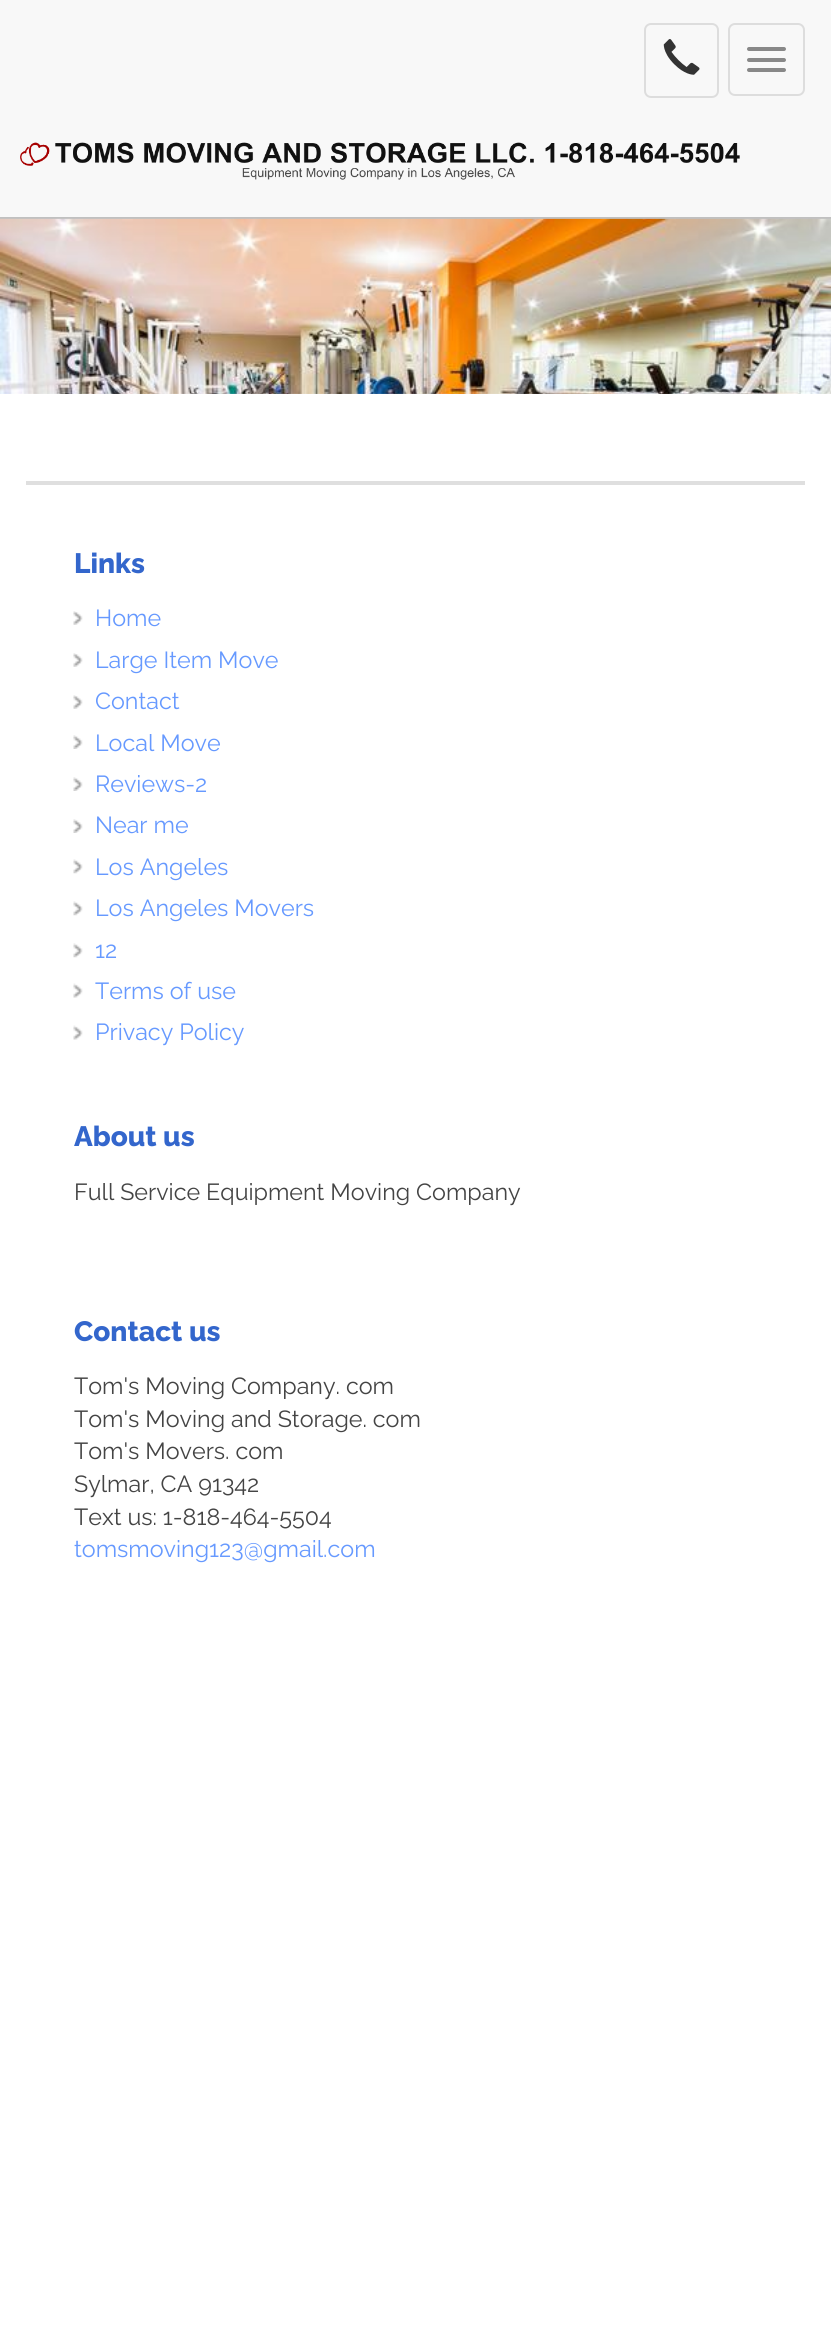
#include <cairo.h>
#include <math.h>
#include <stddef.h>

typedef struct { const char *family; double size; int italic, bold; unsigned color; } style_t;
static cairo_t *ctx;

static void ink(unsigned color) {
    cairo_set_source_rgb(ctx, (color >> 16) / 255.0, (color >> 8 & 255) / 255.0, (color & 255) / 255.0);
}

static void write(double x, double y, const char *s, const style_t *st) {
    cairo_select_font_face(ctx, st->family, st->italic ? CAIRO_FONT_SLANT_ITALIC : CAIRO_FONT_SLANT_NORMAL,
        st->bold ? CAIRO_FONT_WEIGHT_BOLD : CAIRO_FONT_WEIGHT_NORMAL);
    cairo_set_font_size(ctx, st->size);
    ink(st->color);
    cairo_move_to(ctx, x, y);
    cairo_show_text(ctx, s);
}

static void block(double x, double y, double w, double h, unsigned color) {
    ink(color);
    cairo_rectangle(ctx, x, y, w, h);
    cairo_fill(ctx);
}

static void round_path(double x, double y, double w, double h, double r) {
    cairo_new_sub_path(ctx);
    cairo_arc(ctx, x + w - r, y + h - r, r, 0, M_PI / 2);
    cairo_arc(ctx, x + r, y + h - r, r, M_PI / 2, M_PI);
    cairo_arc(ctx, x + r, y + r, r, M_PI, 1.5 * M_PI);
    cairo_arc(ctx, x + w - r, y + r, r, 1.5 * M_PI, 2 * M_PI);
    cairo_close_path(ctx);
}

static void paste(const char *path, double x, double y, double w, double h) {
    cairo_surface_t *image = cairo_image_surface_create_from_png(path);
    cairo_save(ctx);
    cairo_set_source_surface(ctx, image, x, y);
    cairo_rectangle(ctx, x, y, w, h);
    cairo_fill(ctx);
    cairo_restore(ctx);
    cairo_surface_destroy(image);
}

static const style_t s1 = {"Raleway ExtraBold", 28, 0, 0, 0x3366cc};
static const style_t s2 = {"Raleway", 23.3, 0, 0, 0x6699ff};
static const style_t s3 = {"Raleway", 23.3, 0, 0, 0x444444};

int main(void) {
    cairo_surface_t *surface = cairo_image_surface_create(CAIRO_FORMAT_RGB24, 831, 2348);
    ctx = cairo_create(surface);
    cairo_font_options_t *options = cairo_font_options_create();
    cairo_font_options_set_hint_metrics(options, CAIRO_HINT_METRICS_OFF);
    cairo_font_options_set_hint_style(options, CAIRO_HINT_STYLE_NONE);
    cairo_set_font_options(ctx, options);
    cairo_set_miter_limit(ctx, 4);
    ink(0xffffff);
    cairo_paint(ctx);
    block(0, 0, 831, 217, 0xf8f8f8);
    block(0, 217, 831, 2, 0xc0c0c0);
    round_path(645, 24, 73, 73, 6);
    ink(0xdddddd);
    cairo_stroke(ctx);
    paste("pic1.png", 663, 39, 37, 36);
    round_path(729, 24, 75, 71, 6);
    cairo_stroke(ctx);
    ink(0x888888);
    round_path(747, 47, 39, 4, 2);
    cairo_fill(ctx);
    round_path(747, 58, 39, 4, 2);
    cairo_fill(ctx);
    round_path(747, 68, 39, 4, 2);
    cairo_fill(ctx);
    paste("pic2.png", 20, 142, 720, 38);
    paste("pic3.png", 0, 218, 831, 176);
    paste("pic4.png", 0, 218, 831, 176);
    block(26, 481, 779, 4, 0xdfdfdf);
    write(74, 573, "Links", &s1);
    paste("pic5.png", 73, 611, 10, 14);
    write(95, 626, "Home", &s2);
    paste("pic5.png", 73, 653, 10, 14);
    write(95, 668, "Large Item Move", &s2);
    paste("pic5.png", 73, 695, 10, 14);
    write(95, 709, "Contact", &s2);
    paste("pic6.png", 73, 735, 10, 14);
    write(95, 751, "Local Move", &s2);
    paste("pic6.png", 73, 777, 10, 14);
    write(95, 792, "Reviews-2", &s2);
    paste("pic6.png", 73, 819, 10, 14);
    write(95, 833, "Near me", &s2);
    paste("pic7.png", 73, 859, 10, 15);
    write(95, 875, "Los Angeles", &s2);
    paste("pic7.png", 73, 901, 10, 15);
    write(95, 916, "Los Angeles Movers", &s2);
    paste("pic7.png", 73, 943, 10, 15);
    write(95, 958, "12", &s2);
    paste("pic8.png", 73, 983, 10, 15);
    write(95, 999, "Terms of use", &s2);
    paste("pic8.png", 73, 1025, 10, 15);
    write(95, 1040, "Privacy Policy", &s2);
    write(74, 1146, "About us", &s1);
    write(74, 1200, "Full Service Equipment Moving Company", &s3);
    write(74, 1341, "Contact us", &s1);
    write(74, 1394, "Tom's Moving Company. com", &s3);
    write(74, 1427, "Tom's Moving and Storage. com", &s3);
    write(74, 1459, "Tom's Movers. com", &s3);
    write(74, 1492, "Sylmar, CA 91342", &s3);
    write(74, 1525, "Text us: 1-818-464-5504", &s3);
    write(74, 1557, "tomsmoving123@gmail.com", &s2);
    cairo_surface_write_to_png(surface, "screenshot.png");
    cairo_font_options_destroy(options);
    cairo_destroy(ctx);
    cairo_surface_destroy(surface);
    return 0;
}
